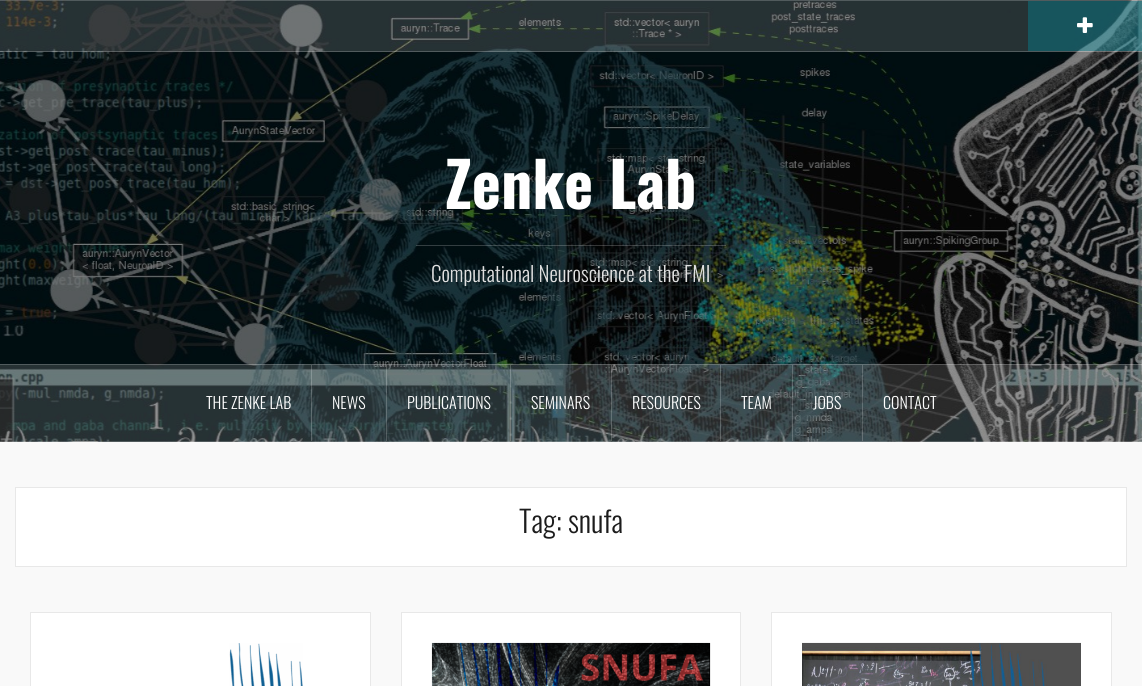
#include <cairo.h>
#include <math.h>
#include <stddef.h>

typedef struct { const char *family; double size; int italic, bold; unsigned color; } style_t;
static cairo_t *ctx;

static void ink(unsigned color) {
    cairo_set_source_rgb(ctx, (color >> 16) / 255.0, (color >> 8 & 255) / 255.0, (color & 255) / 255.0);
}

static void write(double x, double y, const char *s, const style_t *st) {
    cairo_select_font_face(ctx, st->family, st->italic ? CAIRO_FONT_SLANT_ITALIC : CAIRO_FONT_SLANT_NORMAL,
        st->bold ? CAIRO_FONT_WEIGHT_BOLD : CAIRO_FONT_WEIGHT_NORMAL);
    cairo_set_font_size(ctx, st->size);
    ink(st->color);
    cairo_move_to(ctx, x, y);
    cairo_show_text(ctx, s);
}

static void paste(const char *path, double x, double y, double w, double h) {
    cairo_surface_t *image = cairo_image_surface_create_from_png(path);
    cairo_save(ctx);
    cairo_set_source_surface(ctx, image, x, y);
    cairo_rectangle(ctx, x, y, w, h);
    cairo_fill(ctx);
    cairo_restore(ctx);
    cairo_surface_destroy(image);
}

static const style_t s1 = {"Oswald", 62, 0, 1, 0xffffff};
static const style_t s2 = {"Oswald Light", 21, 0, 0, 0xe0e0e0};
static const style_t s3 = {"Oswald Light", 16, 0, 0, 0xffffff};
static const style_t s4 = {"Oswald Light", 30, 0, 0, 0x1c1c1c};

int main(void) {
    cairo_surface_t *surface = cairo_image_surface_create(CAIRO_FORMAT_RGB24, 1142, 686);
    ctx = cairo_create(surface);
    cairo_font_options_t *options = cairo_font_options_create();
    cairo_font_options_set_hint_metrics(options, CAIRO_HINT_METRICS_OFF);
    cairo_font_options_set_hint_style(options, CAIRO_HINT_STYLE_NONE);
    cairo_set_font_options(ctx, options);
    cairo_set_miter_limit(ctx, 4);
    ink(0xf9f9f9);
    cairo_paint(ctx);
    paste("pic1.png", 0, 0, 1142, 442);
    cairo_set_source_rgba(ctx, 1, 1, 1, 0.15);
    cairo_rectangle(ctx, 0, 0, 1142, 52);
    cairo_fill(ctx);
    cairo_set_source_rgba(ctx, 1, 1, 1, 0.2);
    cairo_rectangle(ctx, 0, 0, 1142, 1);
    cairo_fill(ctx);
    cairo_rectangle(ctx, 0, 51, 1142, 1);
    cairo_fill(ctx);
    cairo_set_source_rgba(ctx, 0, 0.541, 0.608, 0.4);
    cairo_rectangle(ctx, 1028, 1, 114, 50);
    cairo_fill(ctx);
    paste("pic2.png", 1077, 17, 16, 16);
    write(445, 209, "Zenke Lab", &s1);
    cairo_set_source_rgba(ctx, 1, 1, 1, 0.2);
    cairo_rectangle(ctx, 416, 245, 310, 1);
    cairo_fill(ctx);
    write(431, 282, "Computational Neuroscience at the FMI", &s2);
    cairo_set_source_rgba(ctx, 1, 1, 1, 0.15);
    cairo_rectangle(ctx, 0, 364, 1142, 78);
    cairo_fill(ctx);
    cairo_set_source_rgba(ctx, 1, 1, 1, 0.2);
    cairo_rectangle(ctx, 0, 364, 1142, 1);
    cairo_fill(ctx);
    cairo_rectangle(ctx, 0, 441, 1142, 1);
    cairo_fill(ctx);
    cairo_rectangle(ctx, 311, 365, 1, 76);
    cairo_fill(ctx);
    write(206, 409, "THE ZENKE LAB", &s3);
    cairo_set_source_rgba(ctx, 1, 1, 1, 0.2);
    cairo_rectangle(ctx, 386, 365, 1, 76);
    cairo_fill(ctx);
    write(332, 409, "NEWS", &s3);
    cairo_set_source_rgba(ctx, 1, 1, 1, 0.2);
    cairo_rectangle(ctx, 510, 365, 1, 76);
    cairo_fill(ctx);
    write(407, 409, "PUBLICATIONS", &s3);
    cairo_set_source_rgba(ctx, 1, 1, 1, 0.2);
    cairo_rectangle(ctx, 611, 365, 1, 76);
    cairo_fill(ctx);
    write(531, 409, "SEMINARS", &s3);
    cairo_set_source_rgba(ctx, 1, 1, 1, 0.2);
    cairo_rectangle(ctx, 720, 365, 1, 76);
    cairo_fill(ctx);
    write(632, 409, "RESOURCES", &s3);
    cairo_set_source_rgba(ctx, 1, 1, 1, 0.2);
    cairo_rectangle(ctx, 792, 365, 1, 76);
    cairo_fill(ctx);
    write(741, 409, "TEAM", &s3);
    cairo_set_source_rgba(ctx, 1, 1, 1, 0.2);
    cairo_rectangle(ctx, 862, 365, 1, 76);
    cairo_fill(ctx);
    write(813, 409, "JOBS", &s3);
    write(883, 409, "CONTACT", &s3);
    cairo_rectangle(ctx, 15.5, 487.5, 1111, 79);
    cairo_fill_preserve(ctx);
    ink(0xe8e8e8);
    cairo_set_line_width(ctx, 1);
    cairo_stroke(ctx);
    write(519, 533, "Tag: snufa", &s4);
    ink(0xffffff);
    cairo_rectangle(ctx, 30.5, 612.5, 340, 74);
    cairo_fill_preserve(ctx);
    ink(0xe8e8e8);
    cairo_stroke(ctx);
    paste("pic3.png", 229, 643, 74, 43);
    ink(0xffffff);
    cairo_rectangle(ctx, 401.5, 612.5, 339, 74);
    cairo_fill_preserve(ctx);
    ink(0xe8e8e8);
    cairo_stroke(ctx);
    paste("pic4.png", 431, 642, 280, 44);
    ink(0xffffff);
    cairo_rectangle(ctx, 771.5, 612.5, 340, 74);
    cairo_fill_preserve(ctx);
    ink(0xe8e8e8);
    cairo_stroke(ctx);
    paste("pic5.png", 802, 642, 279, 44);
    cairo_surface_write_to_png(surface, "screenshot.png");
    cairo_font_options_destroy(options);
    cairo_destroy(ctx);
    cairo_surface_destroy(surface);
    return 0;
}
